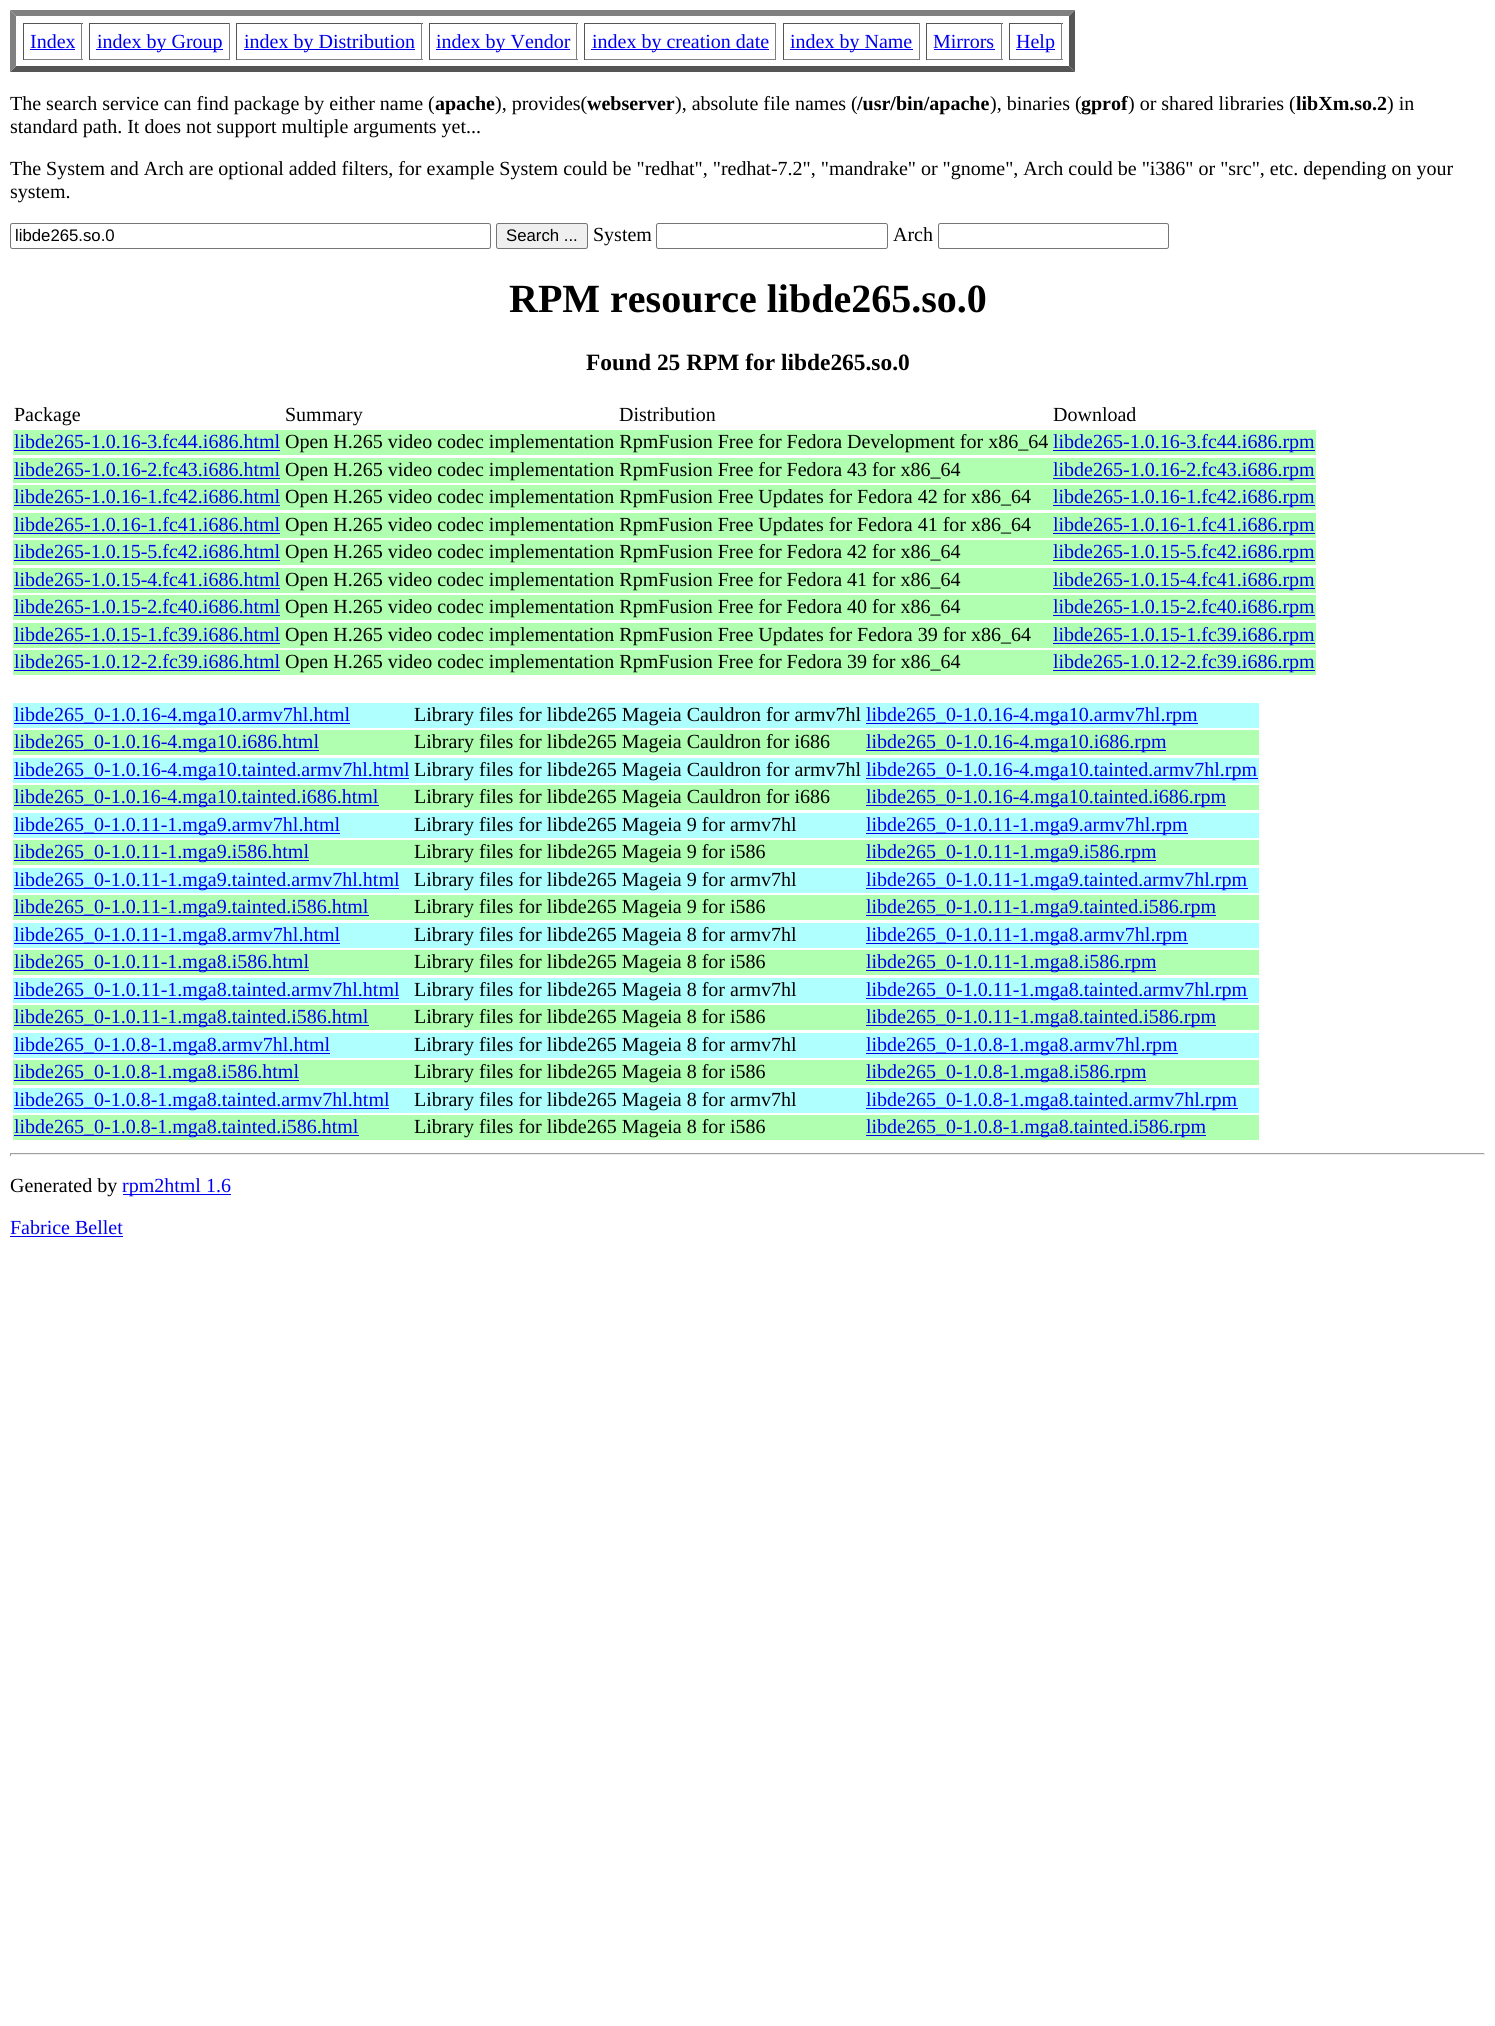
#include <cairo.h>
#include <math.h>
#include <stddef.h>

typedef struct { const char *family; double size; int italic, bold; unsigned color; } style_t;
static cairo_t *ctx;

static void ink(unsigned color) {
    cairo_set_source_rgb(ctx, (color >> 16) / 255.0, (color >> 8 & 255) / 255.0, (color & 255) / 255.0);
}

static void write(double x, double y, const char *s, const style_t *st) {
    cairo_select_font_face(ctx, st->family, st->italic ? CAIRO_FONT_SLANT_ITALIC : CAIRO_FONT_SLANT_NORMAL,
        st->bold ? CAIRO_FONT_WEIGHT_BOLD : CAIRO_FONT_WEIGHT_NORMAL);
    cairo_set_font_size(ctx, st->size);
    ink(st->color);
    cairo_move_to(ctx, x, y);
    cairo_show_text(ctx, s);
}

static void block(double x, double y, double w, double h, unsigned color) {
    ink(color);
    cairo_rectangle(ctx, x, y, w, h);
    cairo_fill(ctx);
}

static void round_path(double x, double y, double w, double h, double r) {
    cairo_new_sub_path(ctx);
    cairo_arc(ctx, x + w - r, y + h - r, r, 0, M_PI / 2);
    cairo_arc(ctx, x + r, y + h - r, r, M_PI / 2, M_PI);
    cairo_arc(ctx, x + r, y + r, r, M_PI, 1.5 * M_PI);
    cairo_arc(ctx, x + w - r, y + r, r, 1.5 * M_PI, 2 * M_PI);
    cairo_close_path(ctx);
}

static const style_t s1 = {"Liberation Serif", 20, 0, 0, 0x0000ee};
static const style_t s2 = {"Liberation Serif", 20, 0, 0, 0x000000};
static const style_t s3 = {"Liberation Serif", 20, 0, 1, 0x000000};
static const style_t s4 = {"Liberation Sans", 16.75, 0, 0, 0x000000};
static const style_t s5 = {"Liberation Serif", 40, 0, 1, 0x000000};
static const style_t s6 = {"Liberation Serif", 23.4, 0, 1, 0x000000};

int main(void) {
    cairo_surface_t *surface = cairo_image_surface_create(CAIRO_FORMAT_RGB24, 1495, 2026);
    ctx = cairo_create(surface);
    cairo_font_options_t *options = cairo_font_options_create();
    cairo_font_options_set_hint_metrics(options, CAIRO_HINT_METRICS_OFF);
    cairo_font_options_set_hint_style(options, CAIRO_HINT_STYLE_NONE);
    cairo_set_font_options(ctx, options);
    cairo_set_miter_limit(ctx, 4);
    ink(0xffffff);
    cairo_paint(ctx);
    ink(0x808080);
    cairo_new_path(ctx);
    cairo_move_to(ctx, 10, 10);
    cairo_line_to(ctx, 1075, 10);
    cairo_line_to(ctx, 1069, 16);
    cairo_line_to(ctx, 16, 16);
    cairo_close_path(ctx);
    cairo_fill(ctx);
    ink(0x555555);
    cairo_new_path(ctx);
    cairo_move_to(ctx, 1075, 10);
    cairo_line_to(ctx, 1075, 72);
    cairo_line_to(ctx, 1069, 66);
    cairo_line_to(ctx, 1069, 16);
    cairo_close_path(ctx);
    cairo_fill(ctx);
    cairo_new_path(ctx);
    cairo_move_to(ctx, 1075, 72);
    cairo_line_to(ctx, 10, 72);
    cairo_line_to(ctx, 16, 66);
    cairo_line_to(ctx, 1069, 66);
    cairo_close_path(ctx);
    cairo_fill(ctx);
    ink(0x808080);
    cairo_new_path(ctx);
    cairo_move_to(ctx, 10, 72);
    cairo_line_to(ctx, 10, 10);
    cairo_line_to(ctx, 16, 16);
    cairo_line_to(ctx, 16, 66);
    cairo_close_path(ctx);
    cairo_fill(ctx);
    block(23, 23, 60, 1, 0x555555);
    block(81, 23, 1, 37, 0x808080);
    block(23, 59, 60, 1, 0x808080);
    block(23, 23, 1, 37, 0x555555);
    write(30, 48, "Index", &s1);
    block(30, 49, 45, 1, 0x0000ee);
    block(89, 23, 141, 1, 0x555555);
    block(229, 23, 1, 37, 0x808080);
    block(89, 59, 141, 1, 0x808080);
    block(89, 23, 1, 37, 0x555555);
    block(96, 49, 127, 1, 0x0000ee);
    write(97, 48, "index by Group", &s1);
    block(236, 23, 187, 1, 0x555555);
    block(421, 23, 1, 37, 0x808080);
    block(236, 59, 187, 1, 0x808080);
    block(236, 23, 1, 37, 0x555555);
    block(244, 49, 171, 1, 0x0000ee);
    write(244, 48, "index by Distribution", &s1);
    block(429, 23, 149, 1, 0x555555);
    block(576, 23, 1, 37, 0x808080);
    block(429, 59, 149, 1, 0x808080);
    block(429, 23, 1, 37, 0x555555);
    block(436, 49, 134, 1, 0x0000ee);
    write(436, 48, "index by Vendor", &s1);
    block(584, 23, 192, 1, 0x555555);
    block(775, 23, 1, 37, 0x808080);
    block(584, 59, 192, 1, 0x808080);
    block(584, 23, 1, 37, 0x555555);
    block(591, 49, 178, 1, 0x0000ee);
    write(592, 48, "index by creation date", &s1);
    block(783, 23, 137, 1, 0x555555);
    block(919, 23, 1, 37, 0x808080);
    block(783, 59, 137, 1, 0x808080);
    block(783, 23, 1, 37, 0x555555);
    block(790, 49, 123, 1, 0x0000ee);
    write(790, 48, "index by Name", &s1);
    block(926, 23, 77, 1, 0x555555);
    block(1001, 23, 1, 37, 0x808080);
    block(926, 59, 77, 1, 0x808080);
    block(926, 23, 1, 37, 0x555555);
    write(933, 48, "Mirrors", &s1);
    block(934, 49, 61, 1, 0x0000ee);
    block(1009, 23, 54, 1, 0x555555);
    block(1061, 23, 1, 37, 0x808080);
    block(1009, 59, 54, 1, 0x808080);
    block(1009, 23, 1, 37, 0x555555);
    block(1016, 49, 39, 1, 0x0000ee);
    write(1016, 48, "Help", &s1);
    write(10, 110, "The search service can find package by either name (", &s2);
    write(435, 110, "apache", &s3);
    write(495, 110, "), provides(", &s2);
    write(587, 110, "webserver", &s3);
    write(675, 110, "), absolute file names (", &s2);
    write(857, 110, "/usr/bin/apache", &s3);
    write(990, 110, "), binaries (", &s2);
    write(1081, 110, "gprof", &s3);
    write(1128, 110, ") or shared libraries (", &s2);
    write(1296, 110, "libXm.so.2", &s3);
    write(1387, 110, ") in", &s2);
    write(10, 133, "standard path. It does not support multiple arguments yet...", &s2);
    write(10, 175, "The System and Arch are optional added filters, for example System could be \"redhat\", \"redhat-7.2\", \"mandrake\" or \"gnome\", Arch could be \"i386\" or \"src\", etc. depending on your", &s2);
    write(10, 198, "system.", &s2);
    round_path(10.5, 223.5, 480, 25, 2);
    ink(0x767676);
    cairo_set_line_width(ctx, 1);
    cairo_stroke(ctx);
    write(15, 241, "libde265.so.0", &s4);
    ink(0xefefef);
    round_path(496.5, 223.5, 91, 25, 2);
    cairo_fill_preserve(ctx);
    ink(0x767676);
    cairo_stroke(ctx);
    write(506, 241, "Search ...", &s4);
    write(593, 241, "System", &s2);
    round_path(656.5, 223.5, 231, 25, 2);
    ink(0x767676);
    cairo_stroke(ctx);
    write(893, 241, "Arch", &s2);
    round_path(938.5, 223.5, 230, 25, 2);
    ink(0x767676);
    cairo_stroke(ctx);
    write(509, 312, "RPM resource libde265.so.0", &s5);
    write(586, 370, "Found 25 RPM for libde265.so.0", &s6);
    write(14, 421, "Package", &s2);
    write(285, 421, "Summary", &s2);
    write(619, 421, "Distribution", &s2);
    write(1053, 421, "Download", &s2);
    block(13, 430, 1303, 25, 0xb0ffb0);
    write(14, 448, "libde265-1.0.16-3.fc44.i686.html", &s1);
    block(14, 450, 266, 1, 0x0000ee);
    write(285, 448, "Open H.265 video codec implementation RpmFusion Free for Fedora Development for x86_64", &s2);
    block(1053, 450, 262, 1, 0x0000ee);
    write(1053, 448, "libde265-1.0.16-3.fc44.i686.rpm", &s1);
    block(13, 458, 1303, 25, 0xb0ffb0);
    write(14, 476, "libde265-1.0.16-2.fc43.i686.html", &s1);
    block(14, 478, 266, 1, 0x0000ee);
    write(285, 476, "Open H.265 video codec implementation RpmFusion Free for Fedora 43 for x86_64", &s2);
    block(1053, 478, 262, 1, 0x0000ee);
    write(1053, 476, "libde265-1.0.16-2.fc43.i686.rpm", &s1);
    block(13, 485, 1303, 25, 0xb0ffb0);
    write(14, 503, "libde265-1.0.16-1.fc42.i686.html", &s1);
    block(14, 505, 266, 1, 0x0000ee);
    write(285, 503, "Open H.265 video codec implementation RpmFusion Free Updates for Fedora 42 for x86_64", &s2);
    block(1053, 505, 262, 1, 0x0000ee);
    write(1053, 503, "libde265-1.0.16-1.fc42.i686.rpm", &s1);
    block(13, 513, 1303, 25, 0xb0ffb0);
    write(14, 531, "libde265-1.0.16-1.fc41.i686.html", &s1);
    block(14, 533, 266, 1, 0x0000ee);
    write(285, 531, "Open H.265 video codec implementation RpmFusion Free Updates for Fedora 41 for x86_64", &s2);
    block(1053, 533, 262, 1, 0x0000ee);
    write(1053, 531, "libde265-1.0.16-1.fc41.i686.rpm", &s1);
    block(13, 540, 1303, 25, 0xb0ffb0);
    write(14, 558, "libde265-1.0.15-5.fc42.i686.html", &s1);
    block(14, 560, 266, 1, 0x0000ee);
    write(285, 558, "Open H.265 video codec implementation RpmFusion Free for Fedora 42 for x86_64", &s2);
    block(1053, 560, 262, 1, 0x0000ee);
    write(1053, 558, "libde265-1.0.15-5.fc42.i686.rpm", &s1);
    block(13, 568, 1303, 25, 0xb0ffb0);
    write(14, 586, "libde265-1.0.15-4.fc41.i686.html", &s1);
    block(14, 588, 266, 1, 0x0000ee);
    write(285, 586, "Open H.265 video codec implementation RpmFusion Free for Fedora 41 for x86_64", &s2);
    block(1053, 588, 262, 1, 0x0000ee);
    write(1053, 586, "libde265-1.0.15-4.fc41.i686.rpm", &s1);
    block(13, 595, 1303, 25, 0xb0ffb0);
    write(14, 613, "libde265-1.0.15-2.fc40.i686.html", &s1);
    block(14, 615, 266, 1, 0x0000ee);
    write(285, 613, "Open H.265 video codec implementation RpmFusion Free for Fedora 40 for x86_64", &s2);
    block(1053, 615, 262, 1, 0x0000ee);
    write(1053, 613, "libde265-1.0.15-2.fc40.i686.rpm", &s1);
    block(13, 623, 1303, 25, 0xb0ffb0);
    write(14, 641, "libde265-1.0.15-1.fc39.i686.html", &s1);
    block(14, 643, 266, 1, 0x0000ee);
    write(285, 641, "Open H.265 video codec implementation RpmFusion Free Updates for Fedora 39 for x86_64", &s2);
    block(1053, 643, 262, 1, 0x0000ee);
    write(1053, 641, "libde265-1.0.15-1.fc39.i686.rpm", &s1);
    block(13, 650, 1303, 25, 0xb0ffb0);
    write(14, 668, "libde265-1.0.12-2.fc39.i686.html", &s1);
    block(14, 670, 266, 1, 0x0000ee);
    write(285, 668, "Open H.265 video codec implementation RpmFusion Free for Fedora 39 for x86_64", &s2);
    block(1053, 670, 262, 1, 0x0000ee);
    write(1053, 668, "libde265-1.0.12-2.fc39.i686.rpm", &s1);
    block(13, 703, 1246, 25, 0xb0ffff);
    block(14, 723, 336, 1, 0x0000ee);
    write(14, 721, "libde265_0-1.0.16-4.mga10.armv7hl.html", &s1);
    write(414, 721, "Library files for libde265 Mageia Cauldron for armv7hl", &s2);
    block(866, 723, 332, 1, 0x0000ee);
    write(866, 721, "libde265_0-1.0.16-4.mga10.armv7hl.rpm", &s1);
    block(13, 730, 1246, 25, 0xb0ffb0);
    block(14, 750, 305, 1, 0x0000ee);
    write(14, 748, "libde265_0-1.0.16-4.mga10.i686.html", &s1);
    write(414, 748, "Library files for libde265 Mageia Cauldron for i686", &s2);
    block(866, 750, 300, 1, 0x0000ee);
    write(866, 748, "libde265_0-1.0.16-4.mga10.i686.rpm", &s1);
    block(13, 758, 1246, 25, 0xb0ffff);
    block(14, 778, 395, 1, 0x0000ee);
    write(14, 776, "libde265_0-1.0.16-4.mga10.tainted.armv7hl.html", &s1);
    write(414, 776, "Library files for libde265 Mageia Cauldron for armv7hl", &s2);
    block(866, 778, 392, 1, 0x0000ee);
    write(866, 776, "libde265_0-1.0.16-4.mga10.tainted.armv7hl.rpm", &s1);
    block(13, 785, 1246, 25, 0xb0ffb0);
    block(14, 805, 365, 1, 0x0000ee);
    write(14, 803, "libde265_0-1.0.16-4.mga10.tainted.i686.html", &s1);
    write(414, 803, "Library files for libde265 Mageia Cauldron for i686", &s2);
    block(866, 805, 360, 1, 0x0000ee);
    write(866, 803, "libde265_0-1.0.16-4.mga10.tainted.i686.rpm", &s1);
    block(13, 813, 1246, 25, 0xb0ffff);
    block(14, 833, 326, 1, 0x0000ee);
    write(14, 831, "libde265_0-1.0.11-1.mga9.armv7hl.html", &s1);
    write(414, 831, "Library files for libde265 Mageia 9 for armv7hl", &s2);
    block(866, 833, 322, 1, 0x0000ee);
    write(866, 831, "libde265_0-1.0.11-1.mga9.armv7hl.rpm", &s1);
    block(13, 840, 1246, 25, 0xb0ffb0);
    block(14, 860, 295, 1, 0x0000ee);
    write(14, 858, "libde265_0-1.0.11-1.mga9.i586.html", &s1);
    write(414, 858, "Library files for libde265 Mageia 9 for i586", &s2);
    block(866, 860, 290, 1, 0x0000ee);
    write(866, 858, "libde265_0-1.0.11-1.mga9.i586.rpm", &s1);
    block(13, 868, 1246, 25, 0xb0ffff);
    block(14, 888, 385, 1, 0x0000ee);
    write(14, 886, "libde265_0-1.0.11-1.mga9.tainted.armv7hl.html", &s1);
    write(414, 886, "Library files for libde265 Mageia 9 for armv7hl", &s2);
    block(866, 888, 382, 1, 0x0000ee);
    write(866, 886, "libde265_0-1.0.11-1.mga9.tainted.armv7hl.rpm", &s1);
    block(13, 895, 1246, 25, 0xb0ffb0);
    block(14, 915, 355, 1, 0x0000ee);
    write(14, 913, "libde265_0-1.0.11-1.mga9.tainted.i586.html", &s1);
    write(414, 913, "Library files for libde265 Mageia 9 for i586", &s2);
    block(866, 915, 350, 1, 0x0000ee);
    write(866, 913, "libde265_0-1.0.11-1.mga9.tainted.i586.rpm", &s1);
    block(13, 923, 1246, 25, 0xb0ffff);
    block(14, 943, 326, 1, 0x0000ee);
    write(14, 941, "libde265_0-1.0.11-1.mga8.armv7hl.html", &s1);
    write(414, 941, "Library files for libde265 Mageia 8 for armv7hl", &s2);
    block(866, 943, 322, 1, 0x0000ee);
    write(866, 941, "libde265_0-1.0.11-1.mga8.armv7hl.rpm", &s1);
    block(13, 950, 1246, 25, 0xb0ffb0);
    block(14, 970, 295, 1, 0x0000ee);
    write(14, 968, "libde265_0-1.0.11-1.mga8.i586.html", &s1);
    write(414, 968, "Library files for libde265 Mageia 8 for i586", &s2);
    block(866, 970, 290, 1, 0x0000ee);
    write(866, 968, "libde265_0-1.0.11-1.mga8.i586.rpm", &s1);
    block(13, 978, 1246, 25, 0xb0ffff);
    block(14, 998, 385, 1, 0x0000ee);
    write(14, 996, "libde265_0-1.0.11-1.mga8.tainted.armv7hl.html", &s1);
    write(414, 996, "Library files for libde265 Mageia 8 for armv7hl", &s2);
    block(866, 998, 382, 1, 0x0000ee);
    write(866, 996, "libde265_0-1.0.11-1.mga8.tainted.armv7hl.rpm", &s1);
    block(13, 1005, 1246, 25, 0xb0ffb0);
    block(14, 1025, 355, 1, 0x0000ee);
    write(14, 1023, "libde265_0-1.0.11-1.mga8.tainted.i586.html", &s1);
    write(414, 1023, "Library files for libde265 Mageia 8 for i586", &s2);
    block(866, 1025, 350, 1, 0x0000ee);
    write(866, 1023, "libde265_0-1.0.11-1.mga8.tainted.i586.rpm", &s1);
    block(13, 1033, 1246, 25, 0xb0ffff);
    block(14, 1053, 316, 1, 0x0000ee);
    write(14, 1051, "libde265_0-1.0.8-1.mga8.armv7hl.html", &s1);
    write(414, 1051, "Library files for libde265 Mageia 8 for armv7hl", &s2);
    block(866, 1053, 312, 1, 0x0000ee);
    write(866, 1051, "libde265_0-1.0.8-1.mga8.armv7hl.rpm", &s1);
    block(13, 1060, 1246, 25, 0xb0ffb0);
    block(14, 1080, 285, 1, 0x0000ee);
    write(14, 1078, "libde265_0-1.0.8-1.mga8.i586.html", &s1);
    write(414, 1078, "Library files for libde265 Mageia 8 for i586", &s2);
    block(866, 1080, 280, 1, 0x0000ee);
    write(866, 1078, "libde265_0-1.0.8-1.mga8.i586.rpm", &s1);
    block(13, 1088, 1246, 25, 0xb0ffff);
    block(14, 1108, 375, 1, 0x0000ee);
    write(14, 1106, "libde265_0-1.0.8-1.mga8.tainted.armv7hl.html", &s1);
    write(414, 1106, "Library files for libde265 Mageia 8 for armv7hl", &s2);
    block(866, 1108, 372, 1, 0x0000ee);
    write(866, 1106, "libde265_0-1.0.8-1.mga8.tainted.armv7hl.rpm", &s1);
    block(13, 1115, 1246, 25, 0xb0ffb0);
    block(14, 1135, 345, 1, 0x0000ee);
    write(14, 1133, "libde265_0-1.0.8-1.mga8.tainted.i586.html", &s1);
    write(414, 1133, "Library files for libde265 Mageia 8 for i586", &s2);
    block(866, 1135, 340, 1, 0x0000ee);
    write(866, 1133, "libde265_0-1.0.8-1.mga8.tainted.i586.rpm", &s1);
    block(10, 1153, 1475, 1, 0x9f9f9f);
    block(1484, 1153, 1, 3, 0xeeeeee);
    block(10, 1154, 1475, 1, 0xeeeeee);
    block(10, 1153, 1, 3, 0x9f9f9f);
    write(10, 1192, "Generated by", &s2);
    block(123, 1194, 108, 1, 0x0000ee);
    write(122, 1192, "rpm2html 1.6", &s1);
    write(10, 1234, "Fabrice Bellet", &s1);
    block(10, 1236, 113, 1, 0x0000ee);
    cairo_surface_write_to_png(surface, "screenshot.png");
    cairo_font_options_destroy(options);
    cairo_destroy(ctx);
    cairo_surface_destroy(surface);
    return 0;
}
